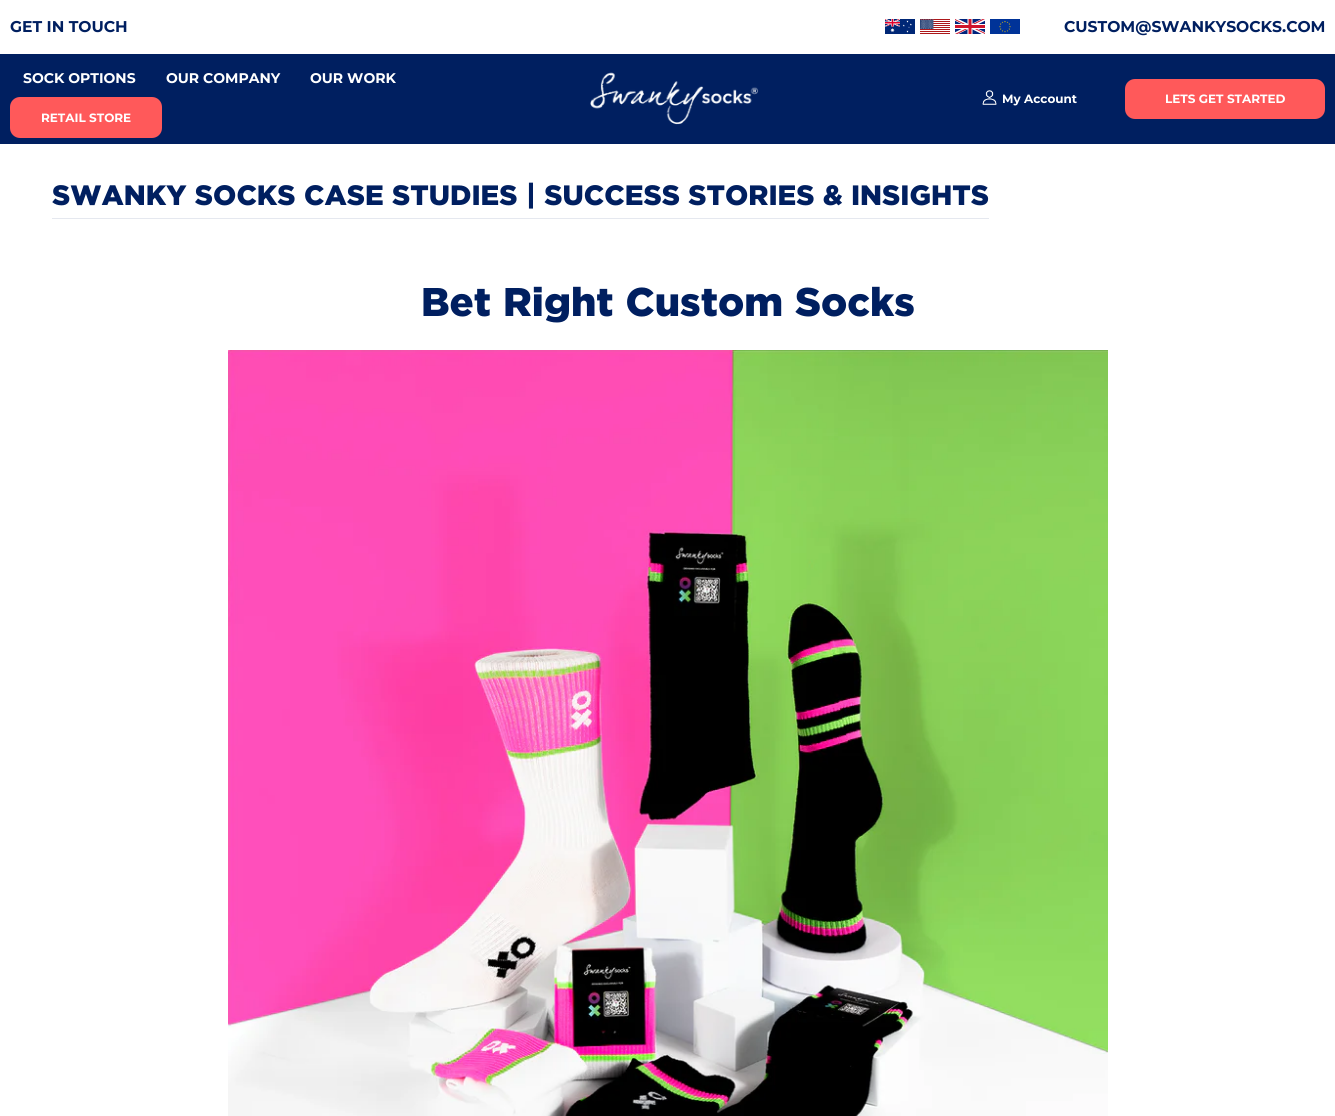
#include <cairo.h>
#include <math.h>
#include <stddef.h>

typedef struct { const char *family; double size; int italic, bold; unsigned color; } style_t;
static cairo_t *ctx;

static void ink(unsigned color) {
    cairo_set_source_rgb(ctx, (color >> 16) / 255.0, (color >> 8 & 255) / 255.0, (color & 255) / 255.0);
}

static void write(double x, double y, const char *s, const style_t *st) {
    cairo_select_font_face(ctx, st->family, st->italic ? CAIRO_FONT_SLANT_ITALIC : CAIRO_FONT_SLANT_NORMAL,
        st->bold ? CAIRO_FONT_WEIGHT_BOLD : CAIRO_FONT_WEIGHT_NORMAL);
    cairo_set_font_size(ctx, st->size);
    ink(st->color);
    cairo_move_to(ctx, x, y);
    cairo_show_text(ctx, s);
}

static void block(double x, double y, double w, double h, unsigned color) {
    ink(color);
    cairo_rectangle(ctx, x, y, w, h);
    cairo_fill(ctx);
}

static void round_path(double x, double y, double w, double h, double r) {
    cairo_new_sub_path(ctx);
    cairo_arc(ctx, x + w - r, y + h - r, r, 0, M_PI / 2);
    cairo_arc(ctx, x + r, y + h - r, r, M_PI / 2, M_PI);
    cairo_arc(ctx, x + r, y + r, r, M_PI, 1.5 * M_PI);
    cairo_arc(ctx, x + w - r, y + r, r, 1.5 * M_PI, 2 * M_PI);
    cairo_close_path(ctx);
}

static void paste(const char *path, double x, double y, double w, double h) {
    cairo_surface_t *image = cairo_image_surface_create_from_png(path);
    cairo_save(ctx);
    cairo_set_source_surface(ctx, image, x, y);
    cairo_rectangle(ctx, x, y, w, h);
    cairo_fill(ctx);
    cairo_restore(ctx);
    cairo_surface_destroy(image);
}

static const style_t s1 = {"Montserrat", 15.6, 0, 1, 0x001f60};
static const style_t s2 = {"Montserrat", 14, 0, 1, 0xffffff};
static const style_t s3 = {"Montserrat", 12, 0, 1, 0xffffff};
static const style_t s4 = {"Gotham Black", 28, 0, 0, 0x001f60};
static const style_t s5 = {"Gotham Black", 40, 0, 0, 0x001f60};

int main(void) {
    cairo_surface_t *surface = cairo_image_surface_create(CAIRO_FORMAT_RGB24, 1335, 1116);
    ctx = cairo_create(surface);
    cairo_font_options_t *options = cairo_font_options_create();
    cairo_font_options_set_hint_metrics(options, CAIRO_HINT_METRICS_OFF);
    cairo_font_options_set_hint_style(options, CAIRO_HINT_STYLE_NONE);
    cairo_set_font_options(ctx, options);
    cairo_set_miter_limit(ctx, 4);
    ink(0xffffff);
    cairo_paint(ctx);
    write(10, 32, "GET IN TOUCH", &s1);
    paste("pic1.png", 885, 19, 30, 15);
    paste("pic2.png", 920, 19, 30, 15);
    paste("pic3.png", 955, 19, 30, 15);
    paste("pic4.png", 990, 19, 30, 15);
    write(1064, 32, "CUSTOM@SWANKYSOCKS.COM", &s1);
    block(0, 54, 1335, 90, 0x001f60);
    write(23, 83, "SOCK OPTIONS", &s2);
    write(166, 83, "OUR COMPANY", &s2);
    write(310, 83, "OUR WORK", &s2);
    ink(0xff595a);
    round_path(10, 97, 152, 41, 10);
    cairo_fill(ctx);
    write(41, 122, "RETAIL STORE", &s3);
    paste("pic5.png", 590, 72, 169, 53);
    paste("pic6.png", 982, 90, 15, 15);
    write(1002, 103, "My Account", &s3);
    ink(0xff595a);
    round_path(1125, 79, 200, 40, 10);
    cairo_fill(ctx);
    write(1165, 103, "LETS GET STARTED", &s3);
    block(52, 218, 937, 1, 0xe5e8ef);
    write(52, 205, "SWANKY SOCKS CASE STUDIES | SUCCESS STORIES & INSIGHTS", &s4);
    write(421, 316, "Bet Right Custom Socks", &s5);
    paste("pic7.png", 228, 350, 880, 766);
    cairo_surface_write_to_png(surface, "screenshot.png");
    cairo_font_options_destroy(options);
    cairo_destroy(ctx);
    cairo_surface_destroy(surface);
    return 0;
}
